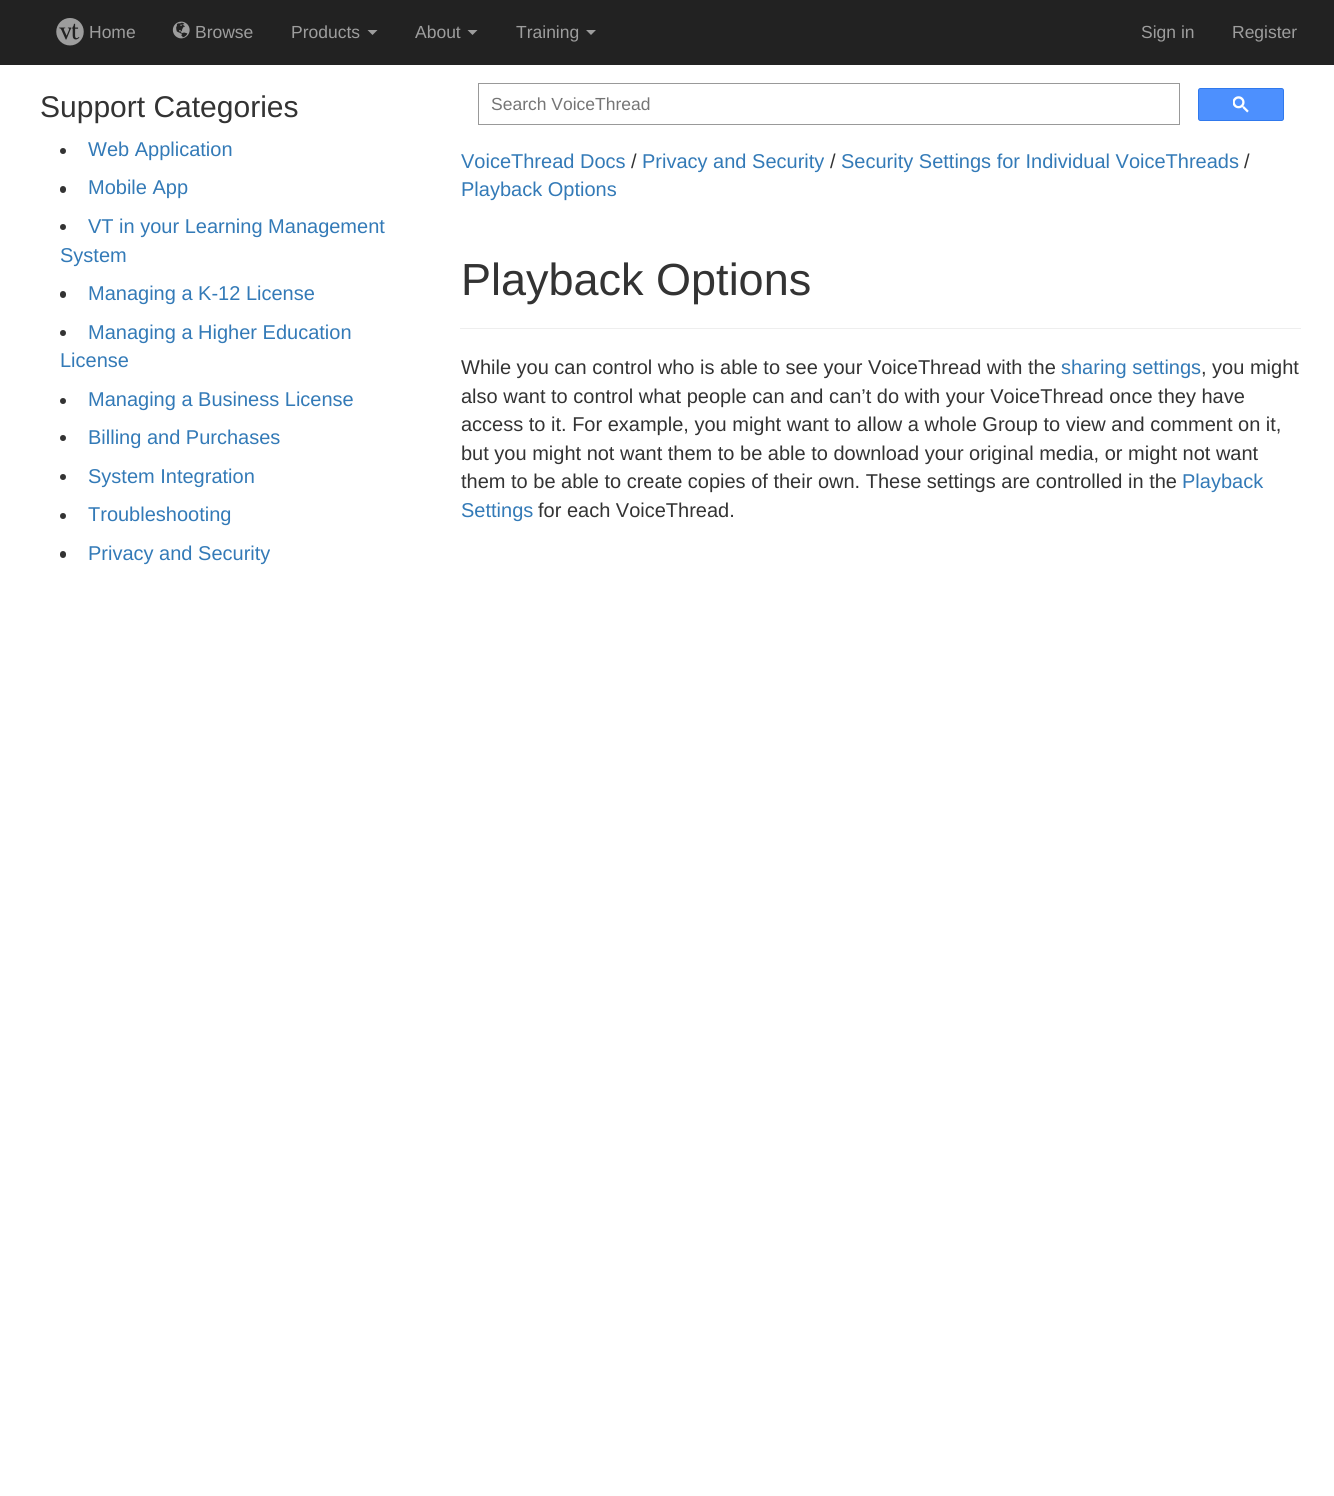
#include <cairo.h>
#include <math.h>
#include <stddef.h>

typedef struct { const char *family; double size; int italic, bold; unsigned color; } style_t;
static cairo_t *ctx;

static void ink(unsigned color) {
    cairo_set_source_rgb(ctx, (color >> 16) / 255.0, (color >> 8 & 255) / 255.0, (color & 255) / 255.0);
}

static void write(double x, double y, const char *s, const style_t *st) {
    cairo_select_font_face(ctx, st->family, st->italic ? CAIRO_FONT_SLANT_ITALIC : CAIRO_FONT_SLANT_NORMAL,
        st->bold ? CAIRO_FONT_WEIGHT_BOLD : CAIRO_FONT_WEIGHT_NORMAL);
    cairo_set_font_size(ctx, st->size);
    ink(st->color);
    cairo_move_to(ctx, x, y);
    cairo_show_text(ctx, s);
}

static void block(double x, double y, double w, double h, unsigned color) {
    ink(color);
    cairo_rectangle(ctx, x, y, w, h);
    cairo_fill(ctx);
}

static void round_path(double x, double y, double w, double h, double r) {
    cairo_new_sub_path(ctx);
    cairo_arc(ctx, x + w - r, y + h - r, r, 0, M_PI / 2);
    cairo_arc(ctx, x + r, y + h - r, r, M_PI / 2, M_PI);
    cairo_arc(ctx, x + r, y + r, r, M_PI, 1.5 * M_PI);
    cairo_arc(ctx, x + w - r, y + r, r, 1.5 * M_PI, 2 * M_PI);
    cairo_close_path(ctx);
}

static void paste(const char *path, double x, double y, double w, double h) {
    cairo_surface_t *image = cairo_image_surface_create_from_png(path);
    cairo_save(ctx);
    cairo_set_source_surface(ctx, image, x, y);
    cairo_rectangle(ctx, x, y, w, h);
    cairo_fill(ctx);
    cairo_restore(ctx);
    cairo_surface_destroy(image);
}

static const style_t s1 = {"Liberation Sans", 17.5, 0, 0, 0x9d9d9d};
static const style_t s2 = {"Liberation Sans", 30, 0, 0, 0x333333};
static const style_t s3 = {"Liberation Sans", 20, 0, 0, 0x337ab7};
static const style_t s4 = {"Liberation Sans", 17.5, 0, 0, 0x757575};
static const style_t s5 = {"Liberation Sans", 20, 0, 0, 0x333333};
static const style_t s6 = {"Liberation Sans", 45, 0, 0, 0x333333};

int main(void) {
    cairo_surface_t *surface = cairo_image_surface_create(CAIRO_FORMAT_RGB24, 1334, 1496);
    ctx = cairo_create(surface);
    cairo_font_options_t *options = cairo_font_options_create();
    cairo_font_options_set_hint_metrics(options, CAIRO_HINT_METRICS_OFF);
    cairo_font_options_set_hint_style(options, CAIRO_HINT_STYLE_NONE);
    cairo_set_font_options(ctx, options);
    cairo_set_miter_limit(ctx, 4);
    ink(0xffffff);
    cairo_paint(ctx);
    block(0, 0, 1334, 65, 0x222222);
    paste("pic1.png", 56, 18, 28, 28);
    write(89, 38, "Home", &s1);
    paste("pic2.png", 172, 21, 18, 18);
    write(195, 38, "Browse", &s1);
    write(291, 38, "Products", &s1);
    cairo_new_path(ctx);
    cairo_move_to(ctx, 367.5, 30);
    cairo_line_to(ctx, 377.5, 30);
    cairo_line_to(ctx, 372.5, 35);
    cairo_close_path(ctx);
    cairo_fill(ctx);
    write(415, 38, "About", &s1);
    cairo_new_path(ctx);
    cairo_move_to(ctx, 467.5, 30);
    cairo_line_to(ctx, 477.5, 30);
    cairo_line_to(ctx, 472.5, 35);
    cairo_close_path(ctx);
    cairo_fill(ctx);
    write(516, 38, "Training", &s1);
    cairo_new_path(ctx);
    cairo_move_to(ctx, 586, 30);
    cairo_line_to(ctx, 596, 30);
    cairo_line_to(ctx, 591, 35);
    cairo_close_path(ctx);
    cairo_fill(ctx);
    write(1141, 38, "Sign in", &s1);
    write(1232, 38, "Register", &s1);
    write(40, 117, "Support Categories", &s2);
    cairo_new_path(ctx);
    cairo_arc(ctx, 63, 151, 3, 0, 2 * M_PI);
    cairo_fill(ctx);
    write(88, 156, "Web Application", &s3);
    ink(0x333333);
    round_path(60, 186, 6, 7, 3);
    cairo_fill(ctx);
    write(88, 194, "Mobile App", &s3);
    ink(0x333333);
    cairo_new_path(ctx);
    cairo_arc(ctx, 63, 227, 3, 0, 2 * M_PI);
    cairo_fill(ctx);
    write(88, 233, "VT in your Learning Management", &s3);
    write(60, 262, "System", &s3);
    ink(0x333333);
    round_path(60, 291, 6, 7, 3);
    cairo_fill(ctx);
    write(88, 300, "Managing a K-12 License", &s3);
    ink(0x333333);
    cairo_new_path(ctx);
    cairo_arc(ctx, 63, 333, 3, 0, 2 * M_PI);
    cairo_fill(ctx);
    write(88, 339, "Managing a Higher Education", &s3);
    write(60, 367, "License", &s3);
    ink(0x333333);
    cairo_new_path(ctx);
    cairo_arc(ctx, 63, 401, 3, 0, 2 * M_PI);
    cairo_fill(ctx);
    write(88, 406, "Managing a Business License", &s3);
    ink(0x333333);
    cairo_new_path(ctx);
    cairo_arc(ctx, 63, 438, 3, 0, 2 * M_PI);
    cairo_fill(ctx);
    write(88, 444, "Billing and Purchases", &s3);
    ink(0x333333);
    cairo_new_path(ctx);
    cairo_arc(ctx, 63, 477, 3, 0, 2 * M_PI);
    cairo_fill(ctx);
    write(88, 483, "System Integration", &s3);
    ink(0x333333);
    cairo_new_path(ctx);
    cairo_arc(ctx, 63, 516, 3, 0, 2 * M_PI);
    cairo_fill(ctx);
    write(88, 521, "Troubleshooting", &s3);
    ink(0x333333);
    round_path(60, 551, 6, 7, 3);
    cairo_fill(ctx);
    write(88, 560, "Privacy and Security", &s3);
    cairo_rectangle(ctx, 478.5, 83.5, 701, 41);
    ink(0x999999);
    cairo_set_line_width(ctx, 1);
    cairo_stroke(ctx);
    write(491, 110, "Search VoiceThread", &s4);
    ink(0x4d90fe);
    round_path(1198.5, 88.5, 85, 32, 2);
    cairo_fill_preserve(ctx);
    ink(0x3079ed);
    cairo_stroke(ctx);
    paste("pic3.png", 1233, 96, 16, 17);
    write(461, 168, "VoiceThread Docs", &s3);
    write(631, 168, "/", &s5);
    write(642, 168, "Privacy and Security", &s3);
    write(830, 168, "/", &s5);
    write(841, 168, "Security Settings for Individual VoiceThreads", &s3);
    write(1244, 168, "/", &s5);
    write(461, 196, "Playback Options", &s3);
    block(460, 328, 841, 1, 0xeeeeee);
    write(461, 295, "Playback Options", &s6);
    write(461, 374, "While you can control who is able to see your VoiceThread with the", &s5);
    write(1061, 374, "sharing settings", &s3);
    write(1201, 374, ", you might", &s5);
    write(461, 403, "also want to control what people can and can’t do with your VoiceThread once they have", &s5);
    write(461, 431, "access to it. For example, you might want to allow a whole Group to view and comment on it,", &s5);
    write(461, 460, "but you might not want them to be able to download your original media, or might not want", &s5);
    write(461, 488, "them to be able to create copies of their own. These settings are controlled in the", &s5);
    write(1182, 488, "Playback", &s3);
    write(461, 517, "Settings", &s3);
    write(538, 517, "for each VoiceThread.", &s5);
    cairo_surface_write_to_png(surface, "screenshot.png");
    cairo_font_options_destroy(options);
    cairo_destroy(ctx);
    cairo_surface_destroy(surface);
    return 0;
}
